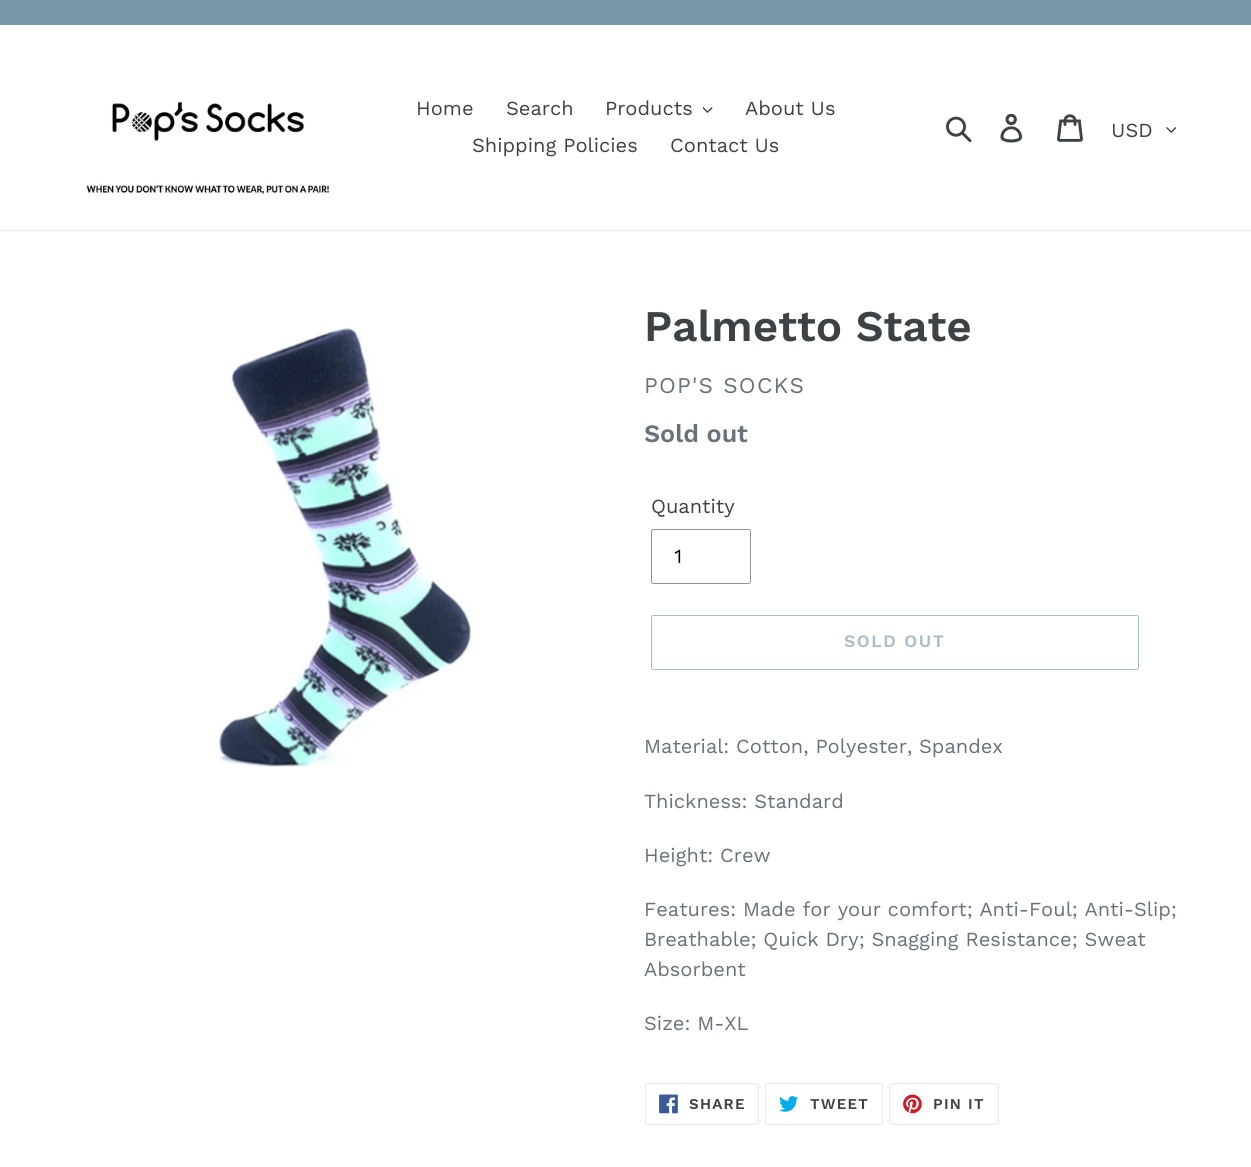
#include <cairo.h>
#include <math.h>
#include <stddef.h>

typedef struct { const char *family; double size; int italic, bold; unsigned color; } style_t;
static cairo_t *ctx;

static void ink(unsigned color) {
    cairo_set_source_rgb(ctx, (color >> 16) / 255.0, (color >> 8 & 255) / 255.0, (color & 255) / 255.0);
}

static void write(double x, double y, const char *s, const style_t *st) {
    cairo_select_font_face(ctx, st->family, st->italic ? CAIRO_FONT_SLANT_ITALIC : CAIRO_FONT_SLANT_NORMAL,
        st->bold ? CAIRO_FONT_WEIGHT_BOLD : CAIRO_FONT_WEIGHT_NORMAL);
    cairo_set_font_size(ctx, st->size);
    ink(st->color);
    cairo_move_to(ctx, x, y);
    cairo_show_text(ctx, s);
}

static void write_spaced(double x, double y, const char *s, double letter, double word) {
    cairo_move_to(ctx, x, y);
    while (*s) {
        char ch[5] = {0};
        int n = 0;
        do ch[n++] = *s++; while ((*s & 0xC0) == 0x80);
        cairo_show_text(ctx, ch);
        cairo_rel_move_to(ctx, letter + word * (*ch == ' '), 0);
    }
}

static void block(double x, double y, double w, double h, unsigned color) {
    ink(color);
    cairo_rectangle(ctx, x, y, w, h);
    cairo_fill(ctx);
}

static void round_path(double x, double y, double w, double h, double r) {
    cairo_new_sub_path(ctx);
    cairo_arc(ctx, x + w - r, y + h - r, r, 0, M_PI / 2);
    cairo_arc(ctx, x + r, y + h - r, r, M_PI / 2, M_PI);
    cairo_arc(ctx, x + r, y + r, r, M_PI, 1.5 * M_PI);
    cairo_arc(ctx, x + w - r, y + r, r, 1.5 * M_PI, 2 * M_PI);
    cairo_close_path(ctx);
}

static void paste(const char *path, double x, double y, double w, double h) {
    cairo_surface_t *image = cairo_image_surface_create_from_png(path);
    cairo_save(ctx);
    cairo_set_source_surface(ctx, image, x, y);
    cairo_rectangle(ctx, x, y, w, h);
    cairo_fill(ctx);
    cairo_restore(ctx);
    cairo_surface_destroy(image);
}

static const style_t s1 = {"Work Sans", 20, 0, 0, 0x3d4246};
static const style_t s2 = {"Work Sans SemiBold", 43.75, 0, 0, 0x3d4246};
static const style_t s3 = {"Work Sans SemiBold", 25, 0, 0, 0x69727b};
static const style_t s4 = {"Work Sans", 20, 0, 0, 0x000000};
static const style_t s5 = {"Work Sans", 20, 0, 0, 0x69727b};

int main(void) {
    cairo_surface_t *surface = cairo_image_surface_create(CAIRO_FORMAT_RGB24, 1251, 1167);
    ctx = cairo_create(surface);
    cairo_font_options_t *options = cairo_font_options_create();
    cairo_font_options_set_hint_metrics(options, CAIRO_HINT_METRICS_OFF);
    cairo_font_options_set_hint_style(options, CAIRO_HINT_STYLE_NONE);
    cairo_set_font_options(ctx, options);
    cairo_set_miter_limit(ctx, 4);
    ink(0xffffff);
    cairo_paint(ctx);
    block(0, 0, 1251, 25, 0x7796a8);
    block(0, 230, 1251, 1, 0xe8e9eb);
    paste("pic1.png", 85, 102, 244, 93);
    write(416, 115, "Home", &s1);
    write(506, 115, "Search", &s1);
    write(605, 115, "Products", &s1);
    paste("pic2.png", 703, 107, 10, 6);
    write(745, 115, "About Us", &s1);
    write(472, 152, "Shipping Policies", &s1);
    write(670, 152, "Contact Us", &s1);
    paste("pic3.png", 946, 116, 26, 27);
    paste("pic4.png", 1000, 114, 22, 29);
    paste("pic5.png", 1057, 114, 26, 28);
    write(1111, 137, "USD", &s1);
    paste("pic6.png", 1166, 127, 10, 6);
    paste("pic7.png", 218, 328, 254, 439);
    write(644, 341, "Palmetto State", &s2);
    cairo_select_font_face(ctx, "Work Sans", CAIRO_FONT_SLANT_NORMAL, CAIRO_FONT_WEIGHT_NORMAL);
    cairo_set_font_size(ctx, 22.5);
    ink(0x69727b);
    write_spaced(644, 393, "POP'S SOCKS", 1.25, 0);
    write(644, 442, "Sold out", &s3);
    write(651, 513, "Quantity", &s1);
    round_path(651.5, 529.5, 99, 54, 2);
    ink(0x949494);
    cairo_set_line_width(ctx, 1);
    cairo_stroke(ctx);
    write(674, 563, "1", &s4);
    round_path(651.5, 615.5, 487, 54, 2);
    ink(0xaabdcb);
    cairo_stroke(ctx);
    cairo_select_font_face(ctx, "Work Sans SemiBold", CAIRO_FONT_SLANT_NORMAL, CAIRO_FONT_WEIGHT_NORMAL);
    cairo_set_font_size(ctx, 17.5);
    write_spaced(844, 647, "SOLD OUT", 1.5, 0);
    write(644, 753, "Material: Cotton, Polyester, Spandex", &s5);
    write(644, 808, "Thickness: Standard", &s5);
    write(644, 862, "Height: Crew", &s5);
    write(644, 916, "Features: Made for your comfort; Anti-Foul; Anti-Slip;", &s5);
    write(644, 946, "Breathable; Quick Dry; Snagging Resistance; Sweat", &s5);
    write(644, 976, "Absorbent", &s5);
    write(644, 1030, "Size: M-XL", &s5);
    round_path(645.5, 1083.5, 113, 41, 2);
    ink(0xe8e9eb);
    cairo_stroke(ctx);
    paste("pic8.png", 659, 1094, 19, 20);
    cairo_select_font_face(ctx, "Work Sans SemiBold", CAIRO_FONT_SLANT_NORMAL, CAIRO_FONT_WEIGHT_NORMAL);
    cairo_set_font_size(ctx, 15);
    ink(0x3d4246);
    write_spaced(689, 1109, "SHARE", 1.25, 0);
    round_path(765.5, 1083.5, 117, 41, 2);
    ink(0xe8e9eb);
    cairo_stroke(ctx);
    paste("pic9.png", 779, 1096, 20, 16);
    ink(0x3d4246);
    write_spaced(810, 1109, "TWEET", 1.25, 0);
    round_path(889.5, 1083.5, 109, 41, 2);
    ink(0xe8e9eb);
    cairo_stroke(ctx);
    paste("pic10.png", 903, 1094, 19, 20);
    ink(0x3d4246);
    write_spaced(933, 1109, "PIN IT", 1.25, 0);
    cairo_surface_write_to_png(surface, "screenshot.png");
    cairo_font_options_destroy(options);
    cairo_destroy(ctx);
    cairo_surface_destroy(surface);
    return 0;
}
